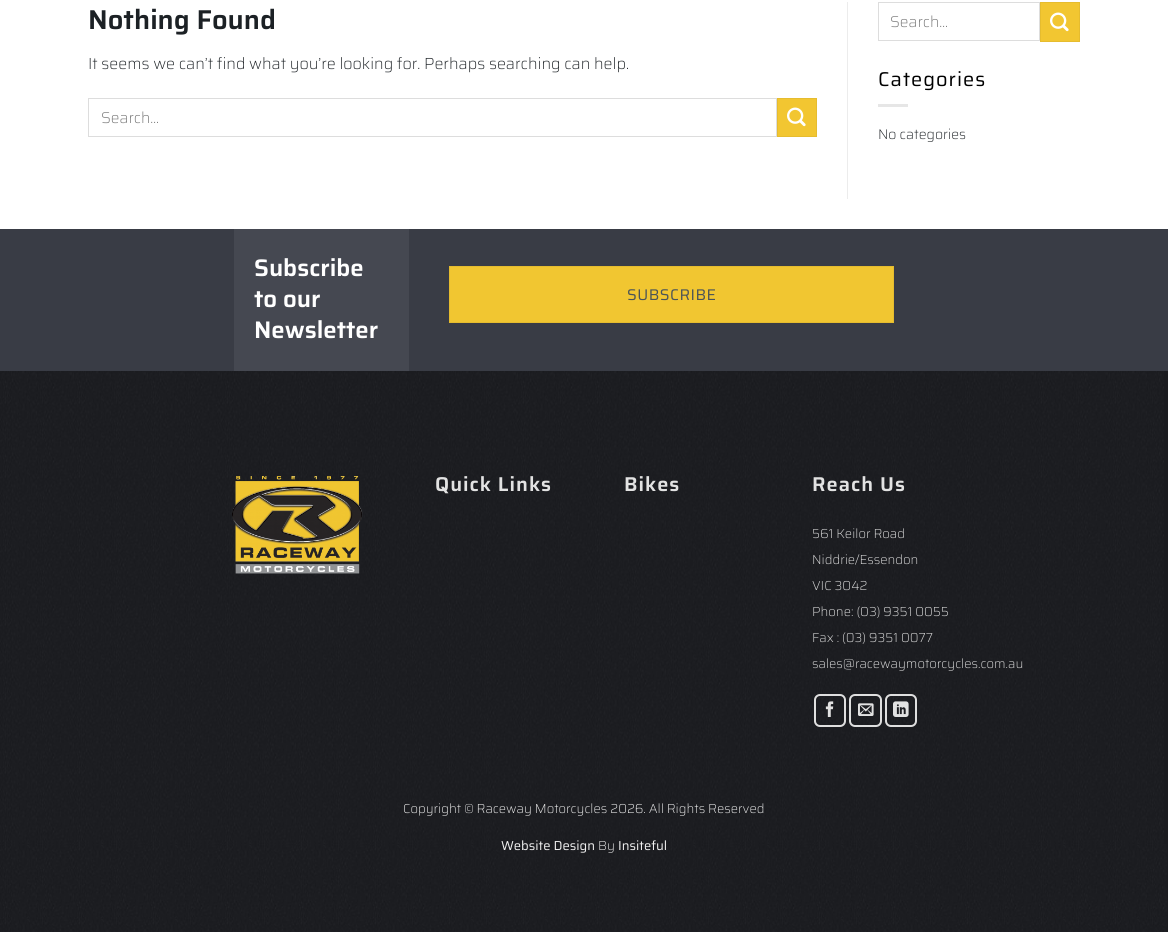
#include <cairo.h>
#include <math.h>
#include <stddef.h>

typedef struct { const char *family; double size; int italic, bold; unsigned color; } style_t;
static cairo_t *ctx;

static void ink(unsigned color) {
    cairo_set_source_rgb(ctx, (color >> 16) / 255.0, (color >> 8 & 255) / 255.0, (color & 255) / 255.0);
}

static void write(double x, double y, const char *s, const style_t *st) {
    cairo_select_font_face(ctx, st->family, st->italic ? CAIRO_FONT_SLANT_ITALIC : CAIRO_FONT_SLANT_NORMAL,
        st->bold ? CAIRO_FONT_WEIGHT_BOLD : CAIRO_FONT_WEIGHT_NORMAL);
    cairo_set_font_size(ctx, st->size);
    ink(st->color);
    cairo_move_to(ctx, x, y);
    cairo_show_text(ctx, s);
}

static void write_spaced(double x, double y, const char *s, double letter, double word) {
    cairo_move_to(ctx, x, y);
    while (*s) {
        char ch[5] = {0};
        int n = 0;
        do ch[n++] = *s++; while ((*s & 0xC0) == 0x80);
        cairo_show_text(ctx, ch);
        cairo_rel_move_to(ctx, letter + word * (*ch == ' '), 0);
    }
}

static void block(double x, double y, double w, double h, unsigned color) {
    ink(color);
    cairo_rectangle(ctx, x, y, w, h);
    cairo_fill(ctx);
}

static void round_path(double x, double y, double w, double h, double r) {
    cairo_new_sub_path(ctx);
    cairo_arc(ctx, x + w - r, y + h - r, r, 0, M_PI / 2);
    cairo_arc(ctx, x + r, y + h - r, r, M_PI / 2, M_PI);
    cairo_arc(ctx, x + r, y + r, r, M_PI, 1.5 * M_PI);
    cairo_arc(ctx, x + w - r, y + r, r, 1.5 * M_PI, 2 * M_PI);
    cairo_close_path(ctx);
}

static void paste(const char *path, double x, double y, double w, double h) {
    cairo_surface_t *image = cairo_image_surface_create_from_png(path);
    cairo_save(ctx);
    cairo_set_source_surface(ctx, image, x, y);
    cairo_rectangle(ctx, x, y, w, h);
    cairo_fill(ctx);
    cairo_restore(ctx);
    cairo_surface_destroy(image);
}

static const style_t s1 = {"Saira SemiBold", 27.25, 0, 0, 0x1c2125};
static const style_t s2 = {"Saira ExtraLight", 16, 0, 0, 0x1c2125};
static const style_t s3 = {"Saira ExtraLight", 15.5, 0, 0, 0x757575};
static const style_t s4 = {"Saira ExtraLight", 14, 0, 0, 0x1c2125};
static const style_t s5 = {"Saira SemiBold", 24, 0, 0, 0xffffff};
static const style_t s6 = {"Saira ExtraLight", 13, 0, 0, 0xe2e2e2};
static const style_t s7 = {"Saira ExtraLight", 13, 0, 0, 0xf1f1f1};
static const style_t s8 = {"Saira", 13, 0, 0, 0xf1f1f1};

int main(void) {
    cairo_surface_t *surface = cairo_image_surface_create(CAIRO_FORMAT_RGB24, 1168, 932);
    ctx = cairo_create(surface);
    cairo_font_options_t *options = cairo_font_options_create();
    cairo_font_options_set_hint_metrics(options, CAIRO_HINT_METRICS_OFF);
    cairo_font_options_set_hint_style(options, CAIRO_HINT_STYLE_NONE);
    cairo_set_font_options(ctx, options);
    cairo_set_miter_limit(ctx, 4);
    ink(0xffffff);
    cairo_paint(ctx);
    write(88, 29, "Nothing Found", &s1);
    write(88, 69, "It seems we can’t find what you’re looking for. Perhaps searching can help.", &s2);
    cairo_rectangle(ctx, 88.5, 98.5, 688, 38);
    ink(0xdddddd);
    cairo_set_line_width(ctx, 1);
    cairo_stroke(ctx);
    write(101, 123, "Search…", &s3);
    ink(0xf2c631);
    cairo_rectangle(ctx, 777.5, 98.5, 39, 38);
    cairo_fill_preserve(ctx);
    ink(0xe6bc2f);
    cairo_stroke(ctx);
    paste("pic1.png", 787, 107, 19, 20);
    block(847, 2, 1, 197, 0xececec);
    cairo_rectangle(ctx, 878.5, 2.5, 161, 38);
    ink(0xdddddd);
    cairo_stroke(ctx);
    write(890, 27, "Search…", &s3);
    ink(0xf2c631);
    cairo_rectangle(ctx, 1040.5, 2.5, 39, 39);
    cairo_fill_preserve(ctx);
    ink(0xe6bc2f);
    cairo_stroke(ctx);
    paste("pic1.png", 1050, 12, 19, 20);
    cairo_select_font_face(ctx, "Saira", CAIRO_FONT_SLANT_NORMAL, CAIRO_FONT_WEIGHT_NORMAL);
    cairo_set_font_size(ctx, 20);
    ink(0x000000);
    write_spaced(878, 86, "Categories", 1, 0);
    block(878, 104, 30, 3, 0xe6e6e6);
    write(878, 139, "No categories", &s4);
    block(0, 229, 1168, 142, 0x393c45);
    block(234, 229, 175, 142, 0x454851);
    write(254, 276, "Subscribe", &s5);
    write(254, 307, "to our", &s5);
    write(254, 338, "Newsletter", &s5);
    ink(0xf1c631);
    cairo_rectangle(ctx, 449.5, 266.5, 444, 56);
    cairo_fill_preserve(ctx);
    ink(0xe5bc2f);
    cairo_stroke(ctx);
    cairo_select_font_face(ctx, "Saira", CAIRO_FONT_SLANT_NORMAL, CAIRO_FONT_WEIGHT_NORMAL);
    cairo_set_font_size(ctx, 15.5);
    ink(0x4a5458);
    write_spaced(627, 300, "SUBSCRIBE", 0.5, 0);
    block(1164, 371, 4, 473, 0x1a1b1f);
    paste("pic2.png", 0, 371, 1164, 473);
    paste("pic3.png", 232, 476, 131, 98);
    cairo_select_font_face(ctx, "Saira SemiBold", CAIRO_FONT_SLANT_NORMAL, CAIRO_FONT_WEIGHT_NORMAL);
    cairo_set_font_size(ctx, 20);
    ink(0xe2e2e2);
    write_spaced(435, 491, "Quick Links", 1, 0);
    write_spaced(624, 491, "Bikes", 1, 0);
    write_spaced(812, 491, "Reach Us", 1, 0);
    write(812, 538, "561 Keilor Road", &s6);
    write(812, 564, "Niddrie/Essendon", &s6);
    write(812, 590, "VIC 3042", &s6);
    write(812, 616, "Phone: (03) 9351 0055", &s6);
    write(812, 642, "Fax : (03) 9351 0077", &s6);
    write(812, 668, "sales@racewaymotorcycles.com.au", &s6);
    round_path(815, 695, 30, 31, 5);
    ink(0xdfdfdf);
    cairo_set_line_width(ctx, 2);
    cairo_stroke(ctx);
    paste("pic4.png", 825, 701, 9, 16);
    round_path(850, 695, 31, 31, 5);
    cairo_stroke(ctx);
    paste("pic5.png", 858, 703, 16, 13);
    round_path(886, 695, 30, 31, 5);
    cairo_stroke(ctx);
    paste("pic6.png", 893, 701, 16, 16);
    block(1167, 844, 1, 88, 0x1a1b1f);
    paste("pic7.png", 0, 844, 1167, 88);
    write(403, 813, "Copyright © Raceway Motorcycles 2026. All Rights Reserved", &s7);
    write(501, 850, "Website Design", &s8);
    write(598, 850, "By", &s7);
    write(618, 850, "Insiteful", &s8);
    cairo_surface_write_to_png(surface, "screenshot.png");
    cairo_font_options_destroy(options);
    cairo_destroy(ctx);
    cairo_surface_destroy(surface);
    return 0;
}
